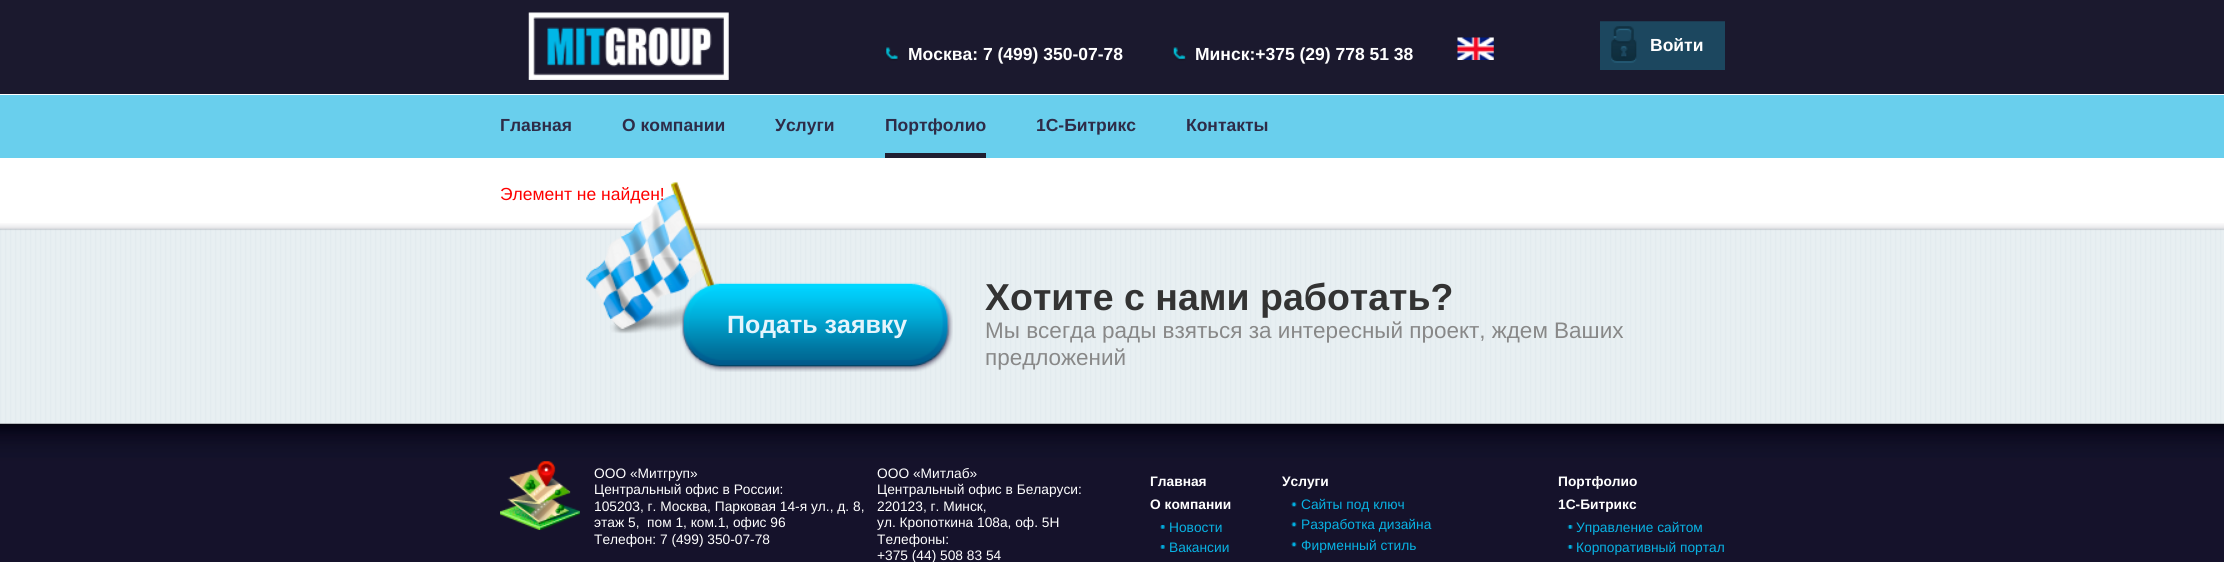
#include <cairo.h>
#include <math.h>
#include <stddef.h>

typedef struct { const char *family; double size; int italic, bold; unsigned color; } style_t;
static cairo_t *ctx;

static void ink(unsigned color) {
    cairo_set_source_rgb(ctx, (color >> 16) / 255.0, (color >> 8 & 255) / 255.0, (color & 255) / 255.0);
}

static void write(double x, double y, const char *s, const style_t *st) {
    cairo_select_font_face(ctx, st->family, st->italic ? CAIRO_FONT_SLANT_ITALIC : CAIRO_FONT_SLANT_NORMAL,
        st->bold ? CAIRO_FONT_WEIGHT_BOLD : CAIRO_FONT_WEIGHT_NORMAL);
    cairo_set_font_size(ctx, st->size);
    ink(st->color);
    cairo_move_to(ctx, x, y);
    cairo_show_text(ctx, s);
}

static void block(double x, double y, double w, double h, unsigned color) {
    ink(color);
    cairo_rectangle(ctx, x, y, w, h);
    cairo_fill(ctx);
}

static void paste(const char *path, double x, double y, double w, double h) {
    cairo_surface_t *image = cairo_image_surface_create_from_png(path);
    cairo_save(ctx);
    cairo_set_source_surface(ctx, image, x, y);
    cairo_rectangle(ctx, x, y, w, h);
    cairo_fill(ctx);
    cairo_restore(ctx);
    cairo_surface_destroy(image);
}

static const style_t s1 = {"Liberation Sans", 17.5, 0, 1, 0xffffff};
static const style_t s2 = {"Liberation Sans", 17.5, 0, 1, 0x2e2c48};
static const style_t s3 = {"Liberation Sans", 17.5, 0, 0, 0xff0000};
static const style_t s4 = {"Liberation Sans", 25, 0, 1, 0xe4f4fc};
static const style_t s5 = {"Liberation Sans", 37.5, 0, 1, 0x333333};
static const style_t s6 = {"Liberation Sans", 22.5, 0, 0, 0x888888};
static const style_t s7 = {"Liberation Sans", 13.75, 0, 0, 0xffffff};
static const style_t s8 = {"Liberation Sans", 13.75, 0, 1, 0xffffff};
static const style_t s9 = {"Liberation Sans", 13.75, 0, 0, 0x08b2e3};

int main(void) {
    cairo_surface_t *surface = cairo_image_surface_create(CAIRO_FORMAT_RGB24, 2224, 562);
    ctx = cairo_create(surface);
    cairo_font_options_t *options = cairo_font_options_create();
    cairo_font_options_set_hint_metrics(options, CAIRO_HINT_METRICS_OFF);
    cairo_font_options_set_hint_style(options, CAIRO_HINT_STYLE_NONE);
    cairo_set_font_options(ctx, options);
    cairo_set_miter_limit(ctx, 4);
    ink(0xffffff);
    cairo_paint(ctx);
    block(0, 0, 2224, 94, 0x1b192e);
    paste("pic1.png", 528, 12, 201, 68);
    paste("pic2.png", 1600, 21, 125, 49);
    write(1650, 51, "Войти", &s1);
    paste("pic3.png", 886, 47, 12, 14);
    write(908, 60, "Москва: 7 (499) 350-07-78", &s1);
    paste("pic4.png", 1173, 47, 13, 14);
    write(1195, 60, "Минск:+375 (29) 778 51 38", &s1);
    paste("pic5.png", 1457, 37, 37, 23);
    block(0, 95, 2224, 63, 0x69cfed);
    write(500, 131, "Главная", &s2);
    write(622, 131, "О компании", &s2);
    write(775, 131, "Услуги", &s2);
    block(885, 153, 101, 5, 0x201f31);
    write(885, 131, "Портфолио", &s2);
    write(1036, 131, "1С-Битрикс", &s2);
    write(1186, 131, "Контакты", &s2);
    write(500, 200, "Элемент не найден!", &s3);
    paste("pic6.png", 0, 223, 2224, 201);
    paste("pic7.png", 586, 181, 130, 153);
    paste("pic8.png", 680, 282, 273, 90);
    write(727, 333, "Подать заявку", &s4);
    write(985, 310, "Хотите с нами работать?", &s5);
    write(985, 338, "Мы всегда рады взяться за интересный проект, ждем Ваших", &s6);
    write(985, 365, "предложений", &s6);
    paste("pic9.png", 0, 423, 2224, 139);
    paste("pic10.png", 500, 461, 80, 69);
    write(594, 478, "ООО «Митгруп»", &s7);
    write(594, 494, "Центральный офис в России:", &s7);
    write(594, 511, "105203, г. Москва, Парковая 14-я ул., д. 8,", &s7);
    write(594, 527, "этаж 5,  пом 1, ком.1, офис 96", &s7);
    write(594, 544, "Телефон: 7 (499) 350-07-78", &s7);
    write(877, 478, "ООО «Митлаб»", &s7);
    write(877, 494, "Центральный офис в Беларуси:", &s7);
    write(877, 511, "220123, г. Минск,", &s7);
    write(877, 527, "ул. Кропоткина 108а, оф. 5H", &s7);
    write(877, 544, "Телефоны:", &s7);
    write(877, 560, "+375 (44) 508 83 54", &s7);
    write(1150, 486, "Главная", &s8);
    write(1150, 509, "О компании", &s8);
    paste("pic11.png", 1160, 525, 5, 5);
    write(1169, 532, "Новости", &s9);
    paste("pic11.png", 1160, 545, 5, 5);
    write(1169, 552, "Вакансии", &s9);
    write(1282, 486, "Услуги", &s8);
    paste("pic12.png", 1291, 502, 6, 5);
    write(1301, 509, "Сайты под ключ", &s9);
    paste("pic12.png", 1291, 522, 6, 5);
    write(1301, 529, "Разработка дизайна", &s9);
    paste("pic12.png", 1291, 542, 6, 5);
    write(1301, 550, "Фирменный стиль", &s9);
    write(1558, 486, "Портфолио", &s8);
    write(1558, 509, "1С-Битрикс", &s8);
    paste("pic13.png", 1567, 525, 6, 5);
    write(1576, 532, "Управление сайтом", &s9);
    paste("pic13.png", 1567, 545, 6, 5);
    write(1576, 552, "Корпоративный портал", &s9);
    cairo_surface_write_to_png(surface, "screenshot.png");
    cairo_font_options_destroy(options);
    cairo_destroy(ctx);
    cairo_surface_destroy(surface);
    return 0;
}
